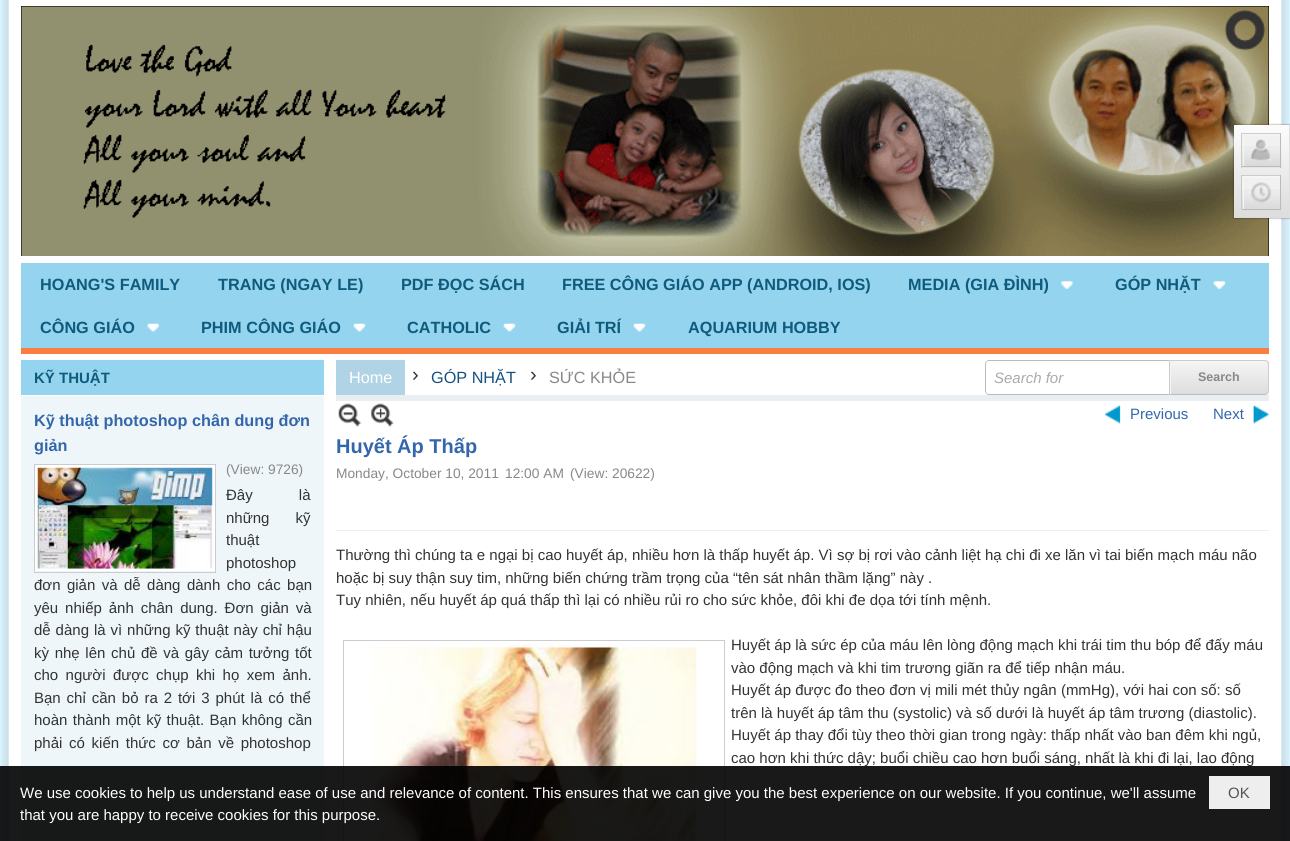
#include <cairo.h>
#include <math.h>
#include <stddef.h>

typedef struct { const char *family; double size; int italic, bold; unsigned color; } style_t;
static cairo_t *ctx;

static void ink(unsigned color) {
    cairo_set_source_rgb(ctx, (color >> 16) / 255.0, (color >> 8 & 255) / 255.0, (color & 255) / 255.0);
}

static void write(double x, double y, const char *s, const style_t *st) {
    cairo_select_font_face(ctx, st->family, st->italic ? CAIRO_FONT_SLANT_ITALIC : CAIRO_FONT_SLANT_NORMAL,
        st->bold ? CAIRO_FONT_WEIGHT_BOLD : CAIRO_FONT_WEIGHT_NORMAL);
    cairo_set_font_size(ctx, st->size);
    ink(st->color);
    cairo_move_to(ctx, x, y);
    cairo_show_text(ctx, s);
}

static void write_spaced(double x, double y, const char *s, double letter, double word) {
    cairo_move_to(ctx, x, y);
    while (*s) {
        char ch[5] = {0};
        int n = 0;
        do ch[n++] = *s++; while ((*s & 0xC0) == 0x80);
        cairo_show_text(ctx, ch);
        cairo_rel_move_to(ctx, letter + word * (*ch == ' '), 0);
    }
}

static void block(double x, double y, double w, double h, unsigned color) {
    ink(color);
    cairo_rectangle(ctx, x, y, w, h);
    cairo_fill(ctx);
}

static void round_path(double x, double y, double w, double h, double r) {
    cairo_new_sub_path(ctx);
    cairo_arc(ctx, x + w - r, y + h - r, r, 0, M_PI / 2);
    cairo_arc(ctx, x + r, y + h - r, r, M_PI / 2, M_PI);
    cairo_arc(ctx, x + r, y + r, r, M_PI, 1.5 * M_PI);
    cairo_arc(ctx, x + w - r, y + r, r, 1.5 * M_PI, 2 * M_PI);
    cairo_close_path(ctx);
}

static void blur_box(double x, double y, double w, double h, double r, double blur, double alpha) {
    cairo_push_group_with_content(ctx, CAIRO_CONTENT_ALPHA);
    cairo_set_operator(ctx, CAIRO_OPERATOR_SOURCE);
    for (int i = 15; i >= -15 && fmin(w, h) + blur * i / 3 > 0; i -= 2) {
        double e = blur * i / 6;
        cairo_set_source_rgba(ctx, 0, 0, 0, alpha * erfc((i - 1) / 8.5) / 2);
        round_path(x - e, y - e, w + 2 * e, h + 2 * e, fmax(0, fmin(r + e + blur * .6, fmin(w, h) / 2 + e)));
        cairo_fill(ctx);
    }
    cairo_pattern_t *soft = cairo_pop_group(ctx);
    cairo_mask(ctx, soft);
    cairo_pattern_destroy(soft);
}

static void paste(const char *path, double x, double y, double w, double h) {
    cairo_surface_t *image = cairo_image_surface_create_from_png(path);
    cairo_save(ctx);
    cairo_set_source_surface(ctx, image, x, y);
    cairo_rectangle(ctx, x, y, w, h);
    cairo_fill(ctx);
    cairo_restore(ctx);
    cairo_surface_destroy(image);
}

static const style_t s1 = {"Liberation Sans", 16.25, 0, 1, 0x0e5b7c};
static const style_t s2 = {"Liberation Sans", 15, 0, 1, 0x0e5b7c};
static const style_t s3 = {"Liberation Sans", 16.25, 0, 1, 0x3466ab};
static const style_t s4 = {"Liberation Sans", 13.75, 0, 0, 0x888888};
static const style_t s5 = {"Liberation Sans", 15, 0, 0, 0x333333};
static const style_t s6 = {"Liberation Sans", 16.25, 0, 0, 0xffffff};
static const style_t s7 = {"Liberation Sans", 20, 0, 0, 0x333333};
static const style_t s8 = {"Liberation Sans", 16.25, 0, 0, 0x145181};
static const style_t s9 = {"Liberation Sans", 16.25, 0, 0, 0x888888};
static const style_t s10 = {"Liberation Sans", 15, 1, 0, 0xaaaaaa};
static const style_t s11 = {"Liberation Sans", 12.5, 0, 1, 0x888888};
static const style_t s12 = {"Liberation Sans", 15, 0, 0, 0x3466ab};
static const style_t s13 = {"Liberation Sans", 20, 0, 1, 0x3466ab};
static const style_t s14 = {"Liberation Sans", 15, 0, 0, 0xffffff};
static const style_t s15 = {"Liberation Sans", 15, 0, 0, 0x555555};

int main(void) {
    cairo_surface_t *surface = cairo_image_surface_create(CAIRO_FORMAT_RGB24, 1290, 841);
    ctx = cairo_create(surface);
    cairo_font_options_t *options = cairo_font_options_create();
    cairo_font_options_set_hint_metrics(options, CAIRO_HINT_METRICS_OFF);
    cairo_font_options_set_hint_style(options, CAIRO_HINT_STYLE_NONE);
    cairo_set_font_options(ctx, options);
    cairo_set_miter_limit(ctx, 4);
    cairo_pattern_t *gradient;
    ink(0xdcf4ff);
    cairo_paint(ctx);
    paste("pic1.png", 1, 0, 1288, 841);
    block(21, 6, 1248, 250, 0x000000);
    paste("pic6.png", 21, 6, 1248, 250);
    ink(0x000000);
    blur_box(1234, 125, 56, 93, 0, 1, 0.5);
    gradient = cairo_pattern_create_linear(1261, 125, 1261, 218);
    cairo_pattern_add_color_stop_rgba(gradient, 0, 0.988, 0.988, 0.988, 1);
    cairo_pattern_add_color_stop_rgba(gradient, 1, 0.863, 0.863, 0.863, 1);
    cairo_set_source(ctx, gradient);
    cairo_pattern_destroy(gradient);
    cairo_rectangle(ctx, 1234, 125, 55, 93);
    cairo_fill(ctx);
    block(1289, 125, 1, 93, 0xe0e0e0);
    block(1242, 134, 38, 34, 0xf1f1f1);
    paste("pic2.png", 1242, 146, 40, 22);
    cairo_save(ctx);
    cairo_rectangle(ctx, 1243, 134, 37, 32);
    cairo_clip(ctx);
    ink(0xf5f5f5);
    cairo_set_fill_rule(ctx, CAIRO_FILL_RULE_EVEN_ODD);
    cairo_new_path(ctx);
    cairo_move_to(ctx, 1119, 10);
    cairo_line_to(ctx, 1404, 10);
    cairo_line_to(ctx, 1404, 290);
    cairo_line_to(ctx, 1119, 290);
    cairo_close_path(ctx);
    cairo_move_to(ctx, 1244, 135);
    cairo_line_to(ctx, 1281, 135);
    cairo_line_to(ctx, 1281, 168);
    cairo_line_to(ctx, 1244, 168);
    cairo_close_path(ctx);
    cairo_fill(ctx);
    cairo_restore(ctx);
    block(1241, 133, 40, 1, 0xcccccc);
    block(1280, 133, 1, 35, 0xbbbbbb);
    block(1241, 166, 40, 1, 0xbbbbbb);
    block(1241, 133, 1, 35, 0xcccccc);
    paste("pic3.png", 1251, 139, 20, 22);
    block(1242, 176, 38, 33, 0xf1f1f1);
    paste("pic4.png", 1242, 189, 40, 22);
    cairo_save(ctx);
    cairo_rectangle(ctx, 1243, 176, 37, 33);
    cairo_clip(ctx);
    ink(0xf5f5f5);
    cairo_set_fill_rule(ctx, CAIRO_FILL_RULE_EVEN_ODD);
    cairo_new_path(ctx);
    cairo_move_to(ctx, 1119, 52);
    cairo_line_to(ctx, 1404, 52);
    cairo_line_to(ctx, 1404, 332);
    cairo_line_to(ctx, 1119, 332);
    cairo_close_path(ctx);
    cairo_move_to(ctx, 1244, 178);
    cairo_line_to(ctx, 1281, 178);
    cairo_line_to(ctx, 1281, 210);
    cairo_line_to(ctx, 1244, 210);
    cairo_close_path(ctx);
    cairo_fill(ctx);
    cairo_restore(ctx);
    block(1241, 175, 40, 1, 0xcccccc);
    block(1280, 175, 1, 35, 0xbbbbbb);
    block(1241, 209, 40, 1, 0xbbbbbb);
    block(1241, 175, 1, 35, 0xcccccc);
    paste("pic5.png", 1251, 182, 21, 21);
    paste("pic7.png", 1225, 10, 41, 41);
    block(21, 263, 1248, 85, 0x94d4ef);
    block(21, 348, 1248, 6, 0xfa7e3f);
    write(40, 290, "HOANG'S FAMILY", &s1);
    write(218, 290, "TRANG (NGAY LE)", &s1);
    write(401, 290, "PDF ĐỌC SÁCH", &s1);
    write(562, 290, "FREE CÔNG GIÁO APP (ANDROID, IOS)", &s1);
    write(908, 290, "MEDIA (GIA ĐÌNH)", &s1);
    paste("pic8.png", 1061, 281, 12, 8);
    write(1115, 290, "GÓP NHẶT", &s1);
    paste("pic9.png", 1213, 281, 13, 8);
    write(40, 333, "CÔNG GIÁO", &s1);
    paste("pic10.png", 147, 323, 12, 9);
    write(201, 333, "PHIM CÔNG GIÁO", &s1);
    paste("pic11.png", 353, 323, 13, 9);
    write(407, 333, "CATHOLIC", &s1);
    paste("pic12.png", 503, 323, 13, 9);
    write(557, 333, "GIẢI TRÍ", &s1);
    paste("pic11.png", 633, 323, 13, 9);
    write(688, 333, "AQUARIUM HOBBY", &s1);
    block(21, 360, 303, 35, 0x94d4ef);
    write(34, 383, "KỸ THUẬT", &s2);
    block(21, 396, 303, 445, 0xeef6f9);
    block(34, 834, 277, 1, 0xdddddd);
    write(34, 426, "Kỹ thuật photoshop chân dung đơn", &s3);
    write(34, 451, "giản", &s3);
    block(35, 465, 180, 106, 0xffffff);
    cairo_rectangle(ctx, 34.5, 464.5, 181, 108);
    ink(0xcccccc);
    cairo_set_line_width(ctx, 1);
    cairo_stroke(ctx);
    paste("pic13.png", 37, 467, 176, 102);
    write(226, 474, "(View: 9726)", &s4);
    cairo_set_font_size(ctx, 15);
    ink(0x333333);
    write_spaced(226, 500, "Đây là", 0, 42);
    write_spaced(226, 523, "những kỹ", 0, 22);
    write(226, 545, "thuật", &s5);
    write(226, 568, "photoshop", &s5);
    write_spaced(34, 590, "đơn giản và dễ dàng dành cho các bạn", 0, 2.25);
    write_spaced(34, 613, "yêu nhiếp ảnh chân dung. Đơn giản và", 0, 2.75);
    write_spaced(34, 635, "dễ dàng là vì những kỹ thuật này chỉ hậu", 0, 0.75);
    write_spaced(34, 658, "kỳ nhẹ lên chủ đề và gây cảm tưởng tốt", 0, 1.5);
    write_spaced(34, 680, "cho người được chụp khi họ xem ảnh.", 0, 3.25);
    write_spaced(34, 703, "Bạn chỉ cần bỏ ra 2 tới 3 phút là có thể", 0, 1.75);
    write_spaced(34, 725, "hoàn thành một kỹ thuật. Bạn không cần", 0, 1.25);
    write_spaced(34, 748, "phải có kiến thức cơ bản về photoshop", 0, 2.5);
    block(336, 395, 933, 6, 0xe9eef2);
    block(336, 360, 69, 35, 0xb0d4e6);
    write(349, 383, "Home", &s6);
    write(412, 381, "›", &s7);
    write(431, 383, "GÓP NHẶT", &s8);
    write(530, 381, "›", &s7);
    write(549, 383, "SỨC KHỎE", &s9);
    ink(0xbbbbbb);
    cairo_set_fill_rule(ctx, CAIRO_FILL_RULE_EVEN_ODD);
    cairo_new_path(ctx);
    cairo_move_to(ctx, 989, 360);
    cairo_line_to(ctx, 1169, 360);
    cairo_line_to(ctx, 1169, 395);
    cairo_line_to(ctx, 989, 395);
    cairo_curve_to(ctx, 987, 395, 985, 393, 985, 391);
    cairo_line_to(ctx, 985, 364);
    cairo_curve_to(ctx, 985, 362, 987, 360, 989, 360);
    cairo_close_path(ctx);
    cairo_move_to(ctx, 989, 361);
    cairo_line_to(ctx, 1169, 361);
    cairo_line_to(ctx, 1169, 394);
    cairo_line_to(ctx, 989, 394);
    cairo_curve_to(ctx, 987, 394, 986, 393, 986, 391);
    cairo_line_to(ctx, 986, 364);
    cairo_curve_to(ctx, 986, 362, 987, 361, 989, 361);
    cairo_close_path(ctx);
    cairo_fill(ctx);
    write(994, 383, "Search for", &s10);
    gradient = cairo_pattern_create_linear(1219, 361, 1219, 394);
    cairo_pattern_add_color_stop_rgba(gradient, 0, 0.961, 0.961, 0.961, 1);
    cairo_pattern_add_color_stop_rgba(gradient, 1, 0.867, 0.867, 0.867, 1);
    cairo_set_source(ctx, gradient);
    cairo_pattern_destroy(gradient);
    cairo_new_path(ctx);
    cairo_move_to(ctx, 1170, 361);
    cairo_line_to(ctx, 1265.5, 361);
    cairo_curve_to(ctx, 1267, 361, 1268, 362, 1268, 363.5);
    cairo_line_to(ctx, 1268, 391.5);
    cairo_curve_to(ctx, 1268, 393, 1267, 394, 1265.5, 394);
    cairo_line_to(ctx, 1170, 394);
    cairo_close_path(ctx);
    cairo_fill(ctx);
    ink(0xf5f5f5);
    cairo_set_fill_rule(ctx, CAIRO_FILL_RULE_WINDING);
    cairo_new_path(ctx);
    cairo_move_to(ctx, 1171, 362);
    cairo_line_to(ctx, 1266, 362);
    cairo_line_to(ctx, 1268, 363);
    cairo_line_to(ctx, 1266, 361);
    cairo_line_to(ctx, 1170, 361);
    cairo_line_to(ctx, 1170, 394);
    cairo_line_to(ctx, 1171, 394);
    cairo_close_path(ctx);
    cairo_fill(ctx);
    ink(0xcccccc);
    cairo_new_path(ctx);
    cairo_move_to(ctx, 1169, 360);
    cairo_line_to(ctx, 1170, 361);
    cairo_line_to(ctx, 1265, 361);
    cairo_line_to(ctx, 1267, 362);
    cairo_line_to(ctx, 1268, 361);
    cairo_line_to(ctx, 1265, 360);
    cairo_close_path(ctx);
    cairo_fill(ctx);
    cairo_new_path(ctx);
    cairo_move_to(ctx, 1269, 392.5);
    cairo_line_to(ctx, 1267.5, 394);
    cairo_line_to(ctx, 1267, 393);
    cairo_curve_to(ctx, 1267.5, 392.5, 1268, 392, 1268, 391);
    cairo_line_to(ctx, 1268, 364);
    cairo_curve_to(ctx, 1268, 363, 1267.5, 362.5, 1267, 362);
    cairo_line_to(ctx, 1267.5, 361);
    cairo_line_to(ctx, 1269, 362.5);
    cairo_close_path(ctx);
    cairo_fill(ctx);
    ink(0xbbbbbb);
    cairo_new_path(ctx);
    cairo_move_to(ctx, 1169, 395);
    cairo_line_to(ctx, 1265, 395);
    cairo_line_to(ctx, 1268, 394);
    cairo_line_to(ctx, 1267, 393);
    cairo_line_to(ctx, 1265, 394);
    cairo_line_to(ctx, 1170, 394);
    cairo_close_path(ctx);
    cairo_fill(ctx);
    ink(0xcccccc);
    cairo_new_path(ctx);
    cairo_move_to(ctx, 1169, 360);
    cairo_line_to(ctx, 1169, 395);
    cairo_line_to(ctx, 1170, 394);
    cairo_line_to(ctx, 1170, 361);
    cairo_close_path(ctx);
    cairo_fill(ctx);
    write(1198, 381, "Search", &s11);
    block(336, 530, 933, 1, 0xeeeeee);
    paste("pic14.png", 338, 403, 24, 24);
    paste("pic15.png", 371, 403, 23, 24);
    paste("pic16.png", 1105, 405, 16, 19);
    write(1130, 419, "Previous", &s12);
    paste("pic17.png", 1253, 405, 16, 19);
    write(1213, 419, "Next", &s12);
    write(336, 453, "Huyết Áp Thấp", &s13);
    write(336, 478, "Monday, October 10, 2011", &s4);
    write(505, 478, "12:00 AM", &s4);
    write(570, 478, "(View: 20622)", &s4);
    write(336, 560, "Thường thì chúng ta e ngại bị cao huyết áp, nhiều hơn là thấp huyết áp. Vì sợ bị rơi vào cảnh liệt hạ chi đi xe lăn vì tai biến mạch máu não", &s5);
    write(336, 583, "hoặc bị suy thận suy tim, những biến chứng trầm trọng của “tên sát nhân thầm lặng” này .", &s5);
    write(336, 605, "Tuy nhiên, nếu huyết áp quá thấp thì lại có nhiều rủi ro cho sức khỏe, đôi khi đe dọa tới tính mệnh.", &s5);
    cairo_rectangle(ctx, 343.5, 640.5, 381, 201);
    ink(0xcccccc);
    cairo_stroke(ctx);
    paste("pic18.png", 369, 644, 328, 197);
    write(731, 650, "Huyết áp là sức ép của máu lên lòng động mạch khi trái tim thu bóp để đấy máu", &s5);
    write(731, 673, "vào động mạch và khi tim trương giãn ra để tiếp nhận máu.", &s5);
    write(731, 695, "Huyết áp được đo theo đơn vị mili mét thủy ngân (mmHg), với hai con số: số", &s5);
    write(731, 718, "trên là huyết áp tâm thu (systolic) và số dưới là huyết áp tâm trương (diastolic).", &s5);
    write(731, 740, "Huyết áp thay đổi tùy theo thời gian trong ngày: thấp nhất vào ban đêm khi ngủ,", &s5);
    write(731, 763, "cao hơn khi thức dậy; buổi chiều cao hơn buổi sáng, nhất là khi đi lại, lao động", &s5);
    cairo_set_source_rgba(ctx, 0, 0, 0, 0.9);
    cairo_rectangle(ctx, 0, 766, 1290, 75);
    cairo_fill(ctx);
    write(20, 798, "We use cookies to help us understand ease of use and relevance of content. This ensures that we can give you the best experience on our website. If you continue, we'll assume", &s14);
    write(20, 820, "that you are happy to receive cookies for this purpose.", &s14);
    block(1209, 776, 61, 33, 0xeeeeee);
    write(1228, 798, "OK", &s15);
    cairo_surface_write_to_png(surface, "screenshot.png");
    cairo_font_options_destroy(options);
    cairo_destroy(ctx);
    cairo_surface_destroy(surface);
    return 0;
}
